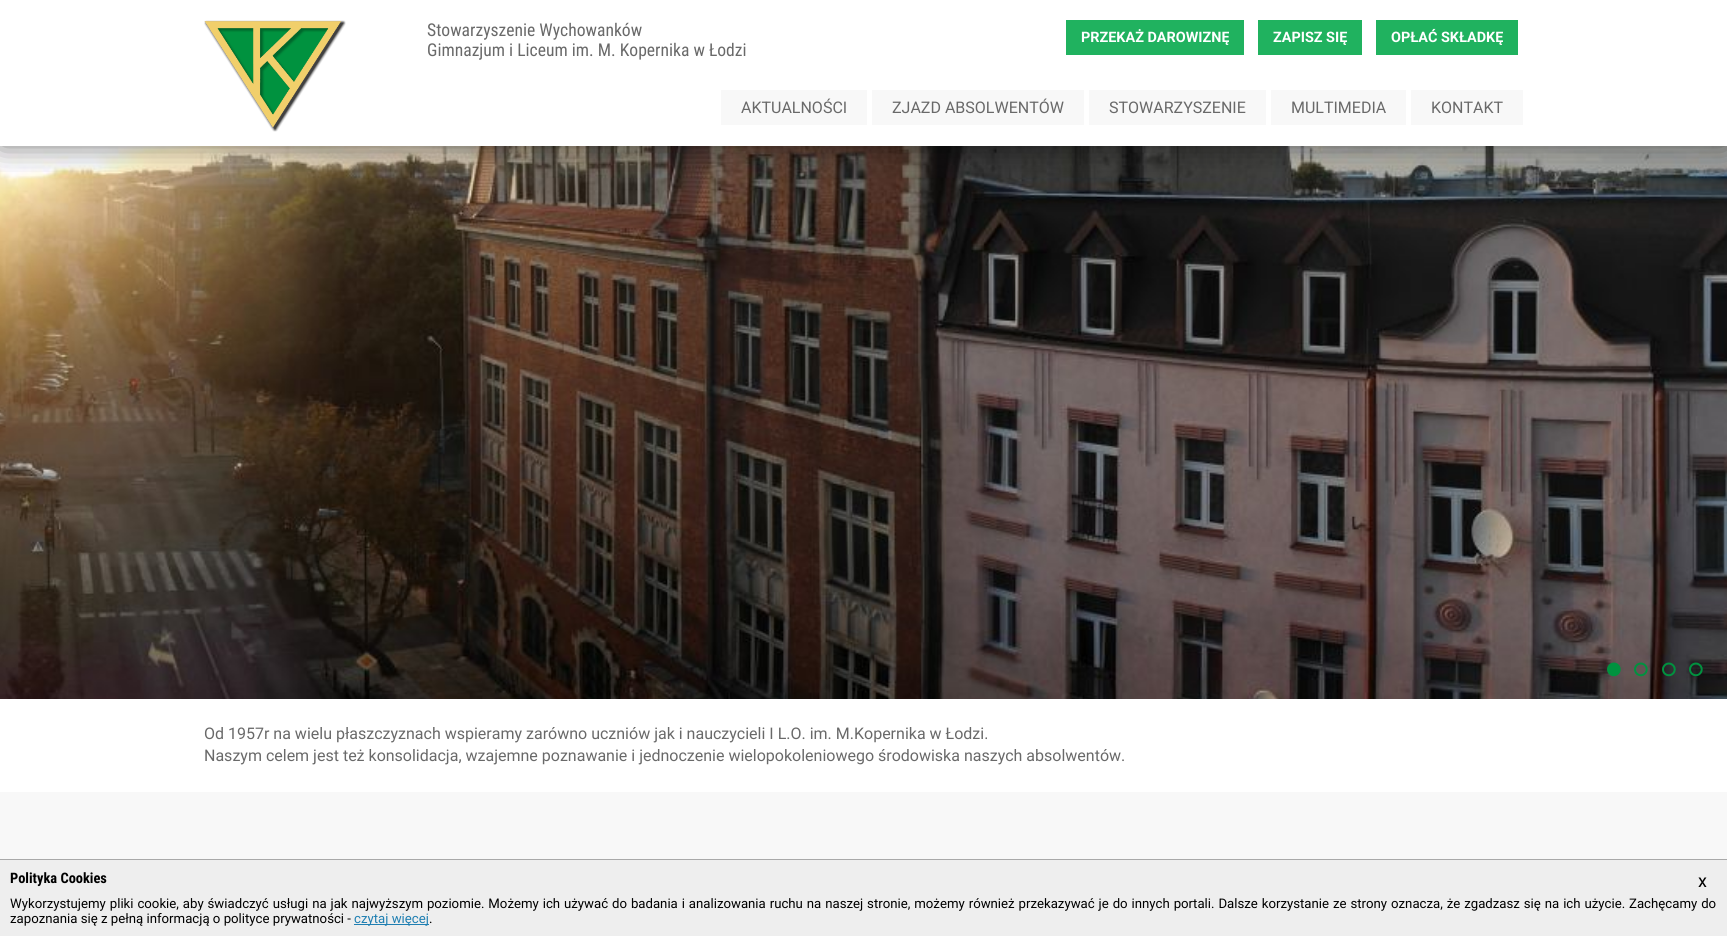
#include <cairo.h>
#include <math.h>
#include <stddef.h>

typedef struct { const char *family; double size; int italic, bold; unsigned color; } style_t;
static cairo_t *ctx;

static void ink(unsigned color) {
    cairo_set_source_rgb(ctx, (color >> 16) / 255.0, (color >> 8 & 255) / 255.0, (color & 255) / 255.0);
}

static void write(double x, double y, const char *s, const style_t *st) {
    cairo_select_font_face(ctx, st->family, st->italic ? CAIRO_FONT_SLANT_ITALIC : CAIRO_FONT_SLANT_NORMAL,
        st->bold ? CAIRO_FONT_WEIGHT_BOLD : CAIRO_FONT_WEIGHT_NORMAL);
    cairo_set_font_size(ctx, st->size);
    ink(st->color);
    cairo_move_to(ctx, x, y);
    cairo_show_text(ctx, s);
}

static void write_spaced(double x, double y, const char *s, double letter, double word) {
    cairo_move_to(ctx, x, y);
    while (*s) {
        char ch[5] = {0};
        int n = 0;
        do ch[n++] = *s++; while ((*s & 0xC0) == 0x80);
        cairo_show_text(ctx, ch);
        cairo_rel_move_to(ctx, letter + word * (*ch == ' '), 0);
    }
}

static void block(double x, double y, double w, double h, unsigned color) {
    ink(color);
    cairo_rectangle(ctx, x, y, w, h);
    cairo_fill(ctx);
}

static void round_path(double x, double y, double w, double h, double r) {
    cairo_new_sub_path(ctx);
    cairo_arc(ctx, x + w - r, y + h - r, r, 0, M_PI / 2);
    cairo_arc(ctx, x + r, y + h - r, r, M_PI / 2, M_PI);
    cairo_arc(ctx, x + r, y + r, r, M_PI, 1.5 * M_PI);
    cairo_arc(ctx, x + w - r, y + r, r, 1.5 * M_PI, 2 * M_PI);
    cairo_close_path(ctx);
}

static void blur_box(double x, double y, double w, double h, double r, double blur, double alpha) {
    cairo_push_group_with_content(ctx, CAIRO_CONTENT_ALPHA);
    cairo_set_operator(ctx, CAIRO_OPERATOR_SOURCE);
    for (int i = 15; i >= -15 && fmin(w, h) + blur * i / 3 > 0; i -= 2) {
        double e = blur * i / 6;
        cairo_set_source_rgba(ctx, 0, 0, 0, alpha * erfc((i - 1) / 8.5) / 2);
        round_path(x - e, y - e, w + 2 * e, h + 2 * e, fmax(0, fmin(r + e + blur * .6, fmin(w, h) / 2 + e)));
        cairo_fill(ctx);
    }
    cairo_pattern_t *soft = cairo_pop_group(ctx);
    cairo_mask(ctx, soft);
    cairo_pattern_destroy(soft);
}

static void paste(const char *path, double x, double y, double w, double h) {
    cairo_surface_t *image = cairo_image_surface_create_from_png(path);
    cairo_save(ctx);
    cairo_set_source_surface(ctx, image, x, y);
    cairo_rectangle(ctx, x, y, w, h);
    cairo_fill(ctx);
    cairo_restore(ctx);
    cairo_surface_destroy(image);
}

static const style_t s1 = {"Roboto Condensed", 17.6, 0, 0, 0x696969};
static const style_t s2 = {"Roboto", 14.4, 0, 1, 0xffffff};
static const style_t s3 = {"Roboto", 16, 0, 0, 0x696969};
static const style_t s4 = {"Roboto Condensed", 14.4, 0, 1, 0x000000};
static const style_t s5 = {"Roboto", 18, 0, 0, 0x000000};
static const style_t s6 = {"Roboto", 13.2, 0, 0, 0x000000};
static const style_t s7 = {"Roboto", 13.2, 0, 0, 0x1f7fb2};

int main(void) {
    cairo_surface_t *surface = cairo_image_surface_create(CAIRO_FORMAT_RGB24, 1727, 936);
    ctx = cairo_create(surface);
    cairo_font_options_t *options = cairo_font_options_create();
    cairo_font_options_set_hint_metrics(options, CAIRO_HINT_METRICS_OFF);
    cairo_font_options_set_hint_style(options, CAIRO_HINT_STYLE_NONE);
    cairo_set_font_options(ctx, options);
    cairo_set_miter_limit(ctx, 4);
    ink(0xffffff);
    cairo_paint(ctx);
    paste("pic2.png", 0, 146, 1727, 553);
    cairo_save(ctx);
    cairo_rectangle(ctx, 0, 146, 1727, 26);
    cairo_clip(ctx);
    ink(0x000000);
    blur_box(0, 0, 1727, 146, 0, 15, 0.5);
    cairo_restore(ctx);
    paste("pic1.png", 204, 20, 142, 112);
    write(427, 36, "Stowarzyszenie Wychowanków", &s1);
    write(427, 56, "Gimnazjum i Liceum im. M. Kopernika w Łodzi", &s1);
    block(1066, 20, 178, 35, 0x20b25f);
    write(1081, 42, "PRZEKAŻ DAROWIZNĘ", &s2);
    block(1258, 20, 104, 35, 0x20b25f);
    write(1273, 42, "ZAPISZ SIĘ", &s2);
    block(1376, 20, 142, 35, 0x20b25f);
    write(1391, 42, "OPŁAĆ SKŁADKĘ", &s2);
    block(721, 90, 146, 35, 0xf8f8f8);
    write(741, 113, "AKTUALNOŚCI", &s3);
    block(872, 90, 212, 35, 0xf8f8f8);
    write(892, 113, "ZJAZD ABSOLWENTÓW", &s3);
    block(1089, 90, 177, 35, 0xf8f8f8);
    write(1109, 113, "STOWARZYSZENIE", &s3);
    block(1271, 90, 135, 35, 0xf8f8f8);
    write(1291, 113, "MULTIMEDIA", &s3);
    block(1411, 90, 112, 35, 0xf8f8f8);
    write(1431, 113, "KONTAKT", &s3);
    paste("pic3.png", 1607, 662, 14, 15);
    paste("pic4.png", 1634, 662, 14, 15);
    paste("pic5.png", 1662, 662, 14, 15);
    paste("pic6.png", 1689, 662, 14, 15);
    write(204, 739, "Od 1957r na wielu płaszczyznach wspieramy zarówno uczniów jak i nauczycieli I L.O. im. M.Kopernika w Łodzi.", &s3);
    write(204, 761, "Naszym celem jest też konsolidacja, wzajemne poznawanie i jednoczenie wielopokoleniowego środowiska naszych absolwentów.", &s3);
    block(0, 792, 1727, 67, 0xf8f8f8);
    block(0, 860, 1727, 76, 0xeeeeee);
    block(0, 859, 1727, 1, 0xa9a9a9);
    write(10, 883, "Polityka Cookies", &s4);
    write(1698, 887, "x", &s5);
    cairo_set_font_size(ctx, 13.2);
    write_spaced(10, 908, "Wykorzystujemy pliki cookie, aby świadczyć usługi na jak najwyższym poziomie. Możemy ich używać do badania i analizowania ruchu na naszej stronie, możemy również przekazywać je do innych portali. Dalsze korzystanie ze strony oznacza, że zgadzasz się na ich użycie. Zachęcamy do", 0, 0.65);
    write(10, 923, "zapoznania się z pełną informacją o polityce prywatności -", &s6);
    block(354, 924, 75, 1, 0x1f7fb2);
    write(354, 923, "czytaj więcej", &s7);
    write(429, 923, ".", &s6);
    cairo_surface_write_to_png(surface, "screenshot.png");
    cairo_font_options_destroy(options);
    cairo_destroy(ctx);
    cairo_surface_destroy(surface);
    return 0;
}
